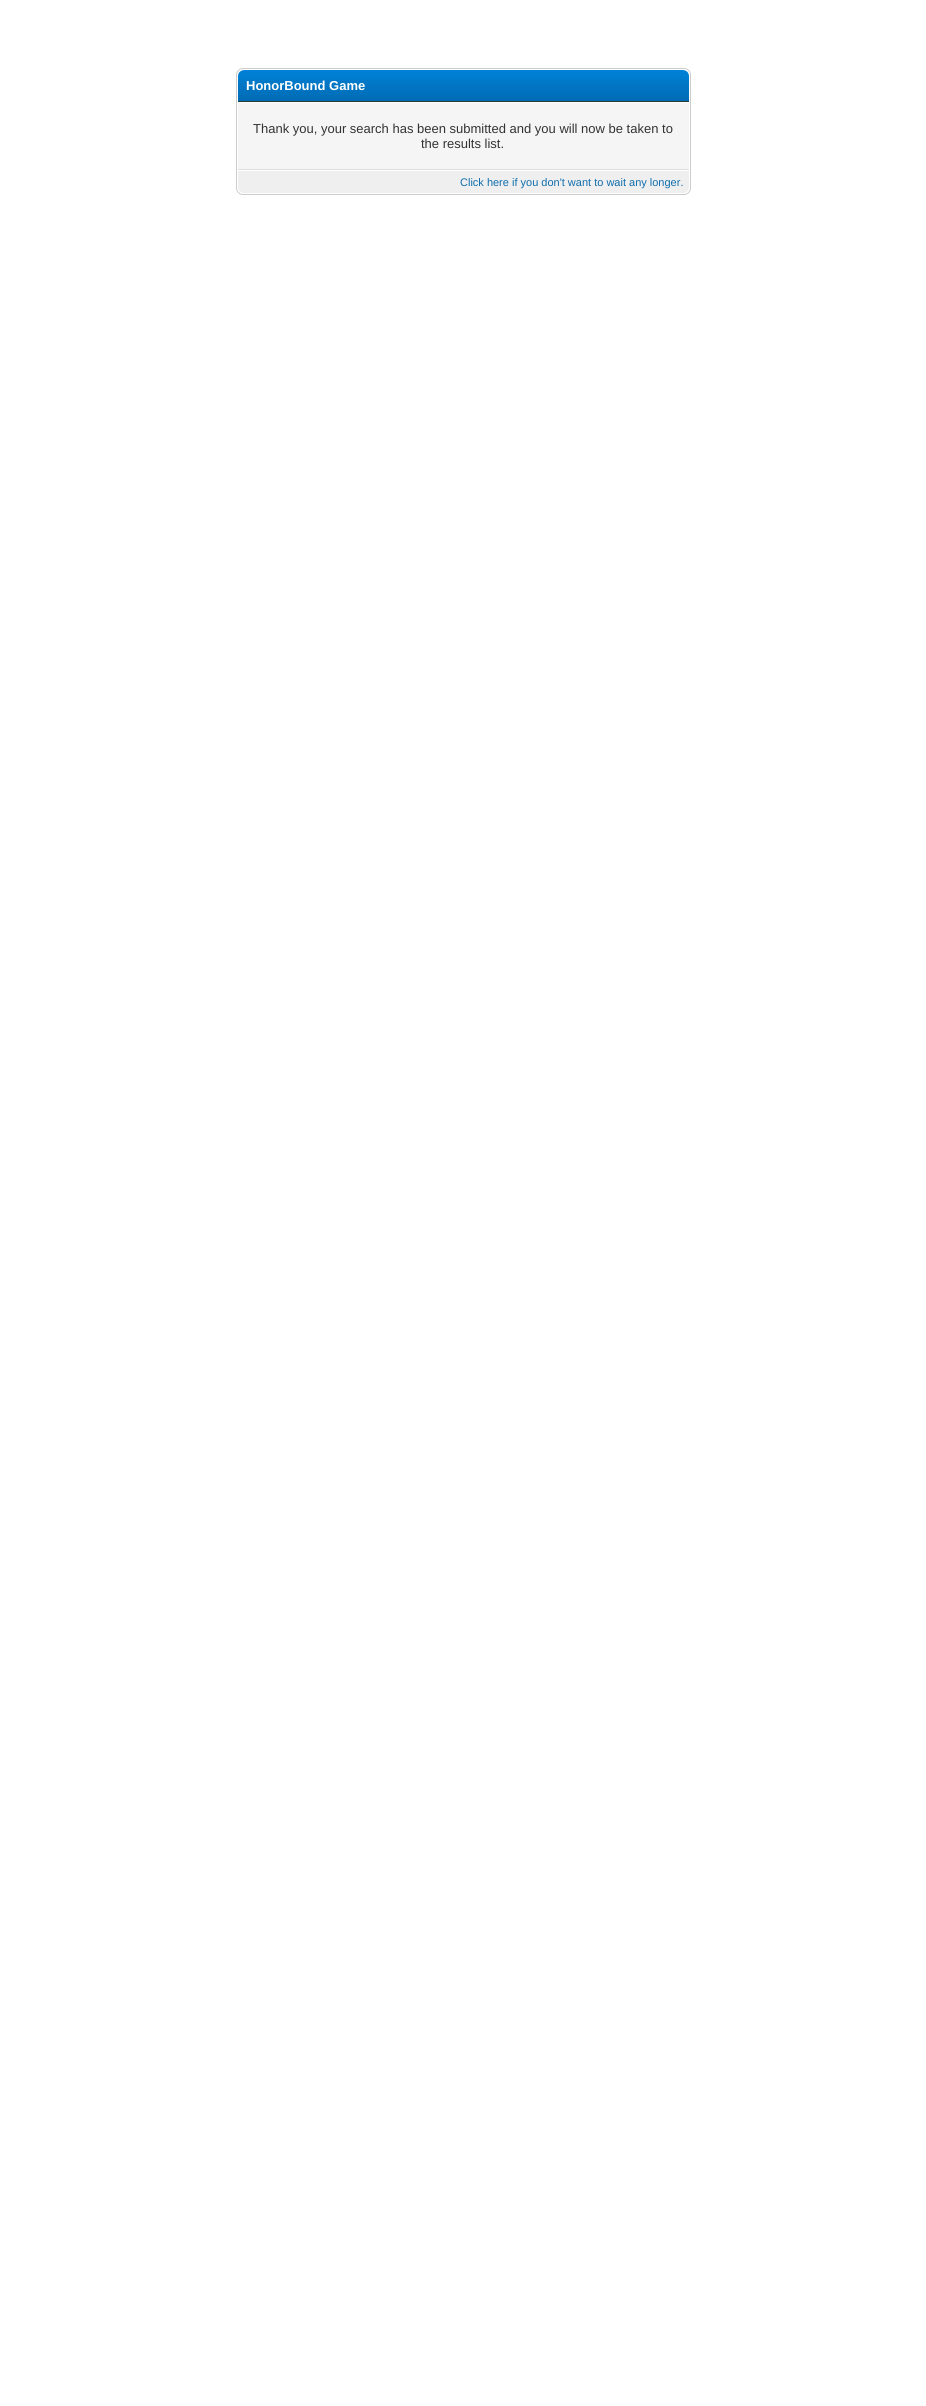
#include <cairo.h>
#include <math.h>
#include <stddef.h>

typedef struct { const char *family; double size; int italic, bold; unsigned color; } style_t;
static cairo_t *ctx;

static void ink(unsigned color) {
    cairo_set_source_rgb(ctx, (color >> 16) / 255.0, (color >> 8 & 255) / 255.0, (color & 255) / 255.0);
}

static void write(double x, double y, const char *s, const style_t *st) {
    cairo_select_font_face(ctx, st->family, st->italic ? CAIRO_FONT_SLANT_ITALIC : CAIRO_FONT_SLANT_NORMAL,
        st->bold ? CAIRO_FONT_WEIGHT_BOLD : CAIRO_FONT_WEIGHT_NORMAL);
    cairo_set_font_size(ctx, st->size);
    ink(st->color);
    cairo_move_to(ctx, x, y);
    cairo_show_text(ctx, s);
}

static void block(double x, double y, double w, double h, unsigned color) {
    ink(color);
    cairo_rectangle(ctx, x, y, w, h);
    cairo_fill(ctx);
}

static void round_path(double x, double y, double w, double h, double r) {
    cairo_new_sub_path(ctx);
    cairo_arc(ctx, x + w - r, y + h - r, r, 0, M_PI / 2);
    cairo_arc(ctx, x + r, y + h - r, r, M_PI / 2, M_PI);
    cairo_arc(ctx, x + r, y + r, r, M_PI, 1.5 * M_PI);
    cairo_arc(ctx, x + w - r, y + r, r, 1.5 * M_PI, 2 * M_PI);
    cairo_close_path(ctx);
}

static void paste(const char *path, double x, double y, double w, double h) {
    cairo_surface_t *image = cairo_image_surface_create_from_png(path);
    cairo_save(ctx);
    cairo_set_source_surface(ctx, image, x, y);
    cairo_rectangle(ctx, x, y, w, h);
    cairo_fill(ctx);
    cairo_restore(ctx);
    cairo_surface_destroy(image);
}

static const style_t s1 = {"Liberation Sans", 13, 0, 1, 0xffffff};
static const style_t s2 = {"Liberation Sans", 13, 0, 0, 0x333333};
static const style_t s3 = {"Liberation Sans", 11, 0, 0, 0x0f6eae};

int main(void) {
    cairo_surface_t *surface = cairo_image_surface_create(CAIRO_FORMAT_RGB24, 926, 2406);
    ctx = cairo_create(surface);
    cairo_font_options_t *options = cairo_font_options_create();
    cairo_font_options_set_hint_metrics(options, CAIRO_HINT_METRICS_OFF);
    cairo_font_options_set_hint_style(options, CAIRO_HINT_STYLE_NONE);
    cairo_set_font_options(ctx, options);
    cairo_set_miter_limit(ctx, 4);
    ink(0xffffff);
    cairo_paint(ctx);
    round_path(236.5, 68.5, 454, 126, 6.5);
    ink(0xcccccc);
    cairo_set_line_width(ctx, 1);
    cairo_stroke(ctx);
    paste("pic1.png", 238, 70, 451, 31);
    block(238, 101, 451, 1, 0x263c30);
    write(246, 90, "HonorBound Game", &s1);
    block(238, 103, 451, 66, 0xf5f5f5);
    block(238, 169, 451, 1, 0xdddddd);
    write(253, 133, "Thank you, your search has been submitted and you will now be taken to", &s2);
    write(421, 148, "the results list.", &s2);
    ink(0xefefef);
    cairo_new_path(ctx);
    cairo_move_to(ctx, 238, 170);
    cairo_line_to(ctx, 689, 170);
    cairo_line_to(ctx, 689, 187);
    cairo_curve_to(ctx, 689, 190.5, 686.5, 193, 683, 193);
    cairo_line_to(ctx, 244, 193);
    cairo_curve_to(ctx, 240.5, 193, 238, 190.5, 238, 187);
    cairo_close_path(ctx);
    cairo_fill(ctx);
    block(238, 170, 451, 1, 0xffffff);
    write(460, 186, "Click here if you don't want to wait any longer.", &s3);
    cairo_surface_write_to_png(surface, "screenshot.png");
    cairo_font_options_destroy(options);
    cairo_destroy(ctx);
    cairo_surface_destroy(surface);
    return 0;
}
